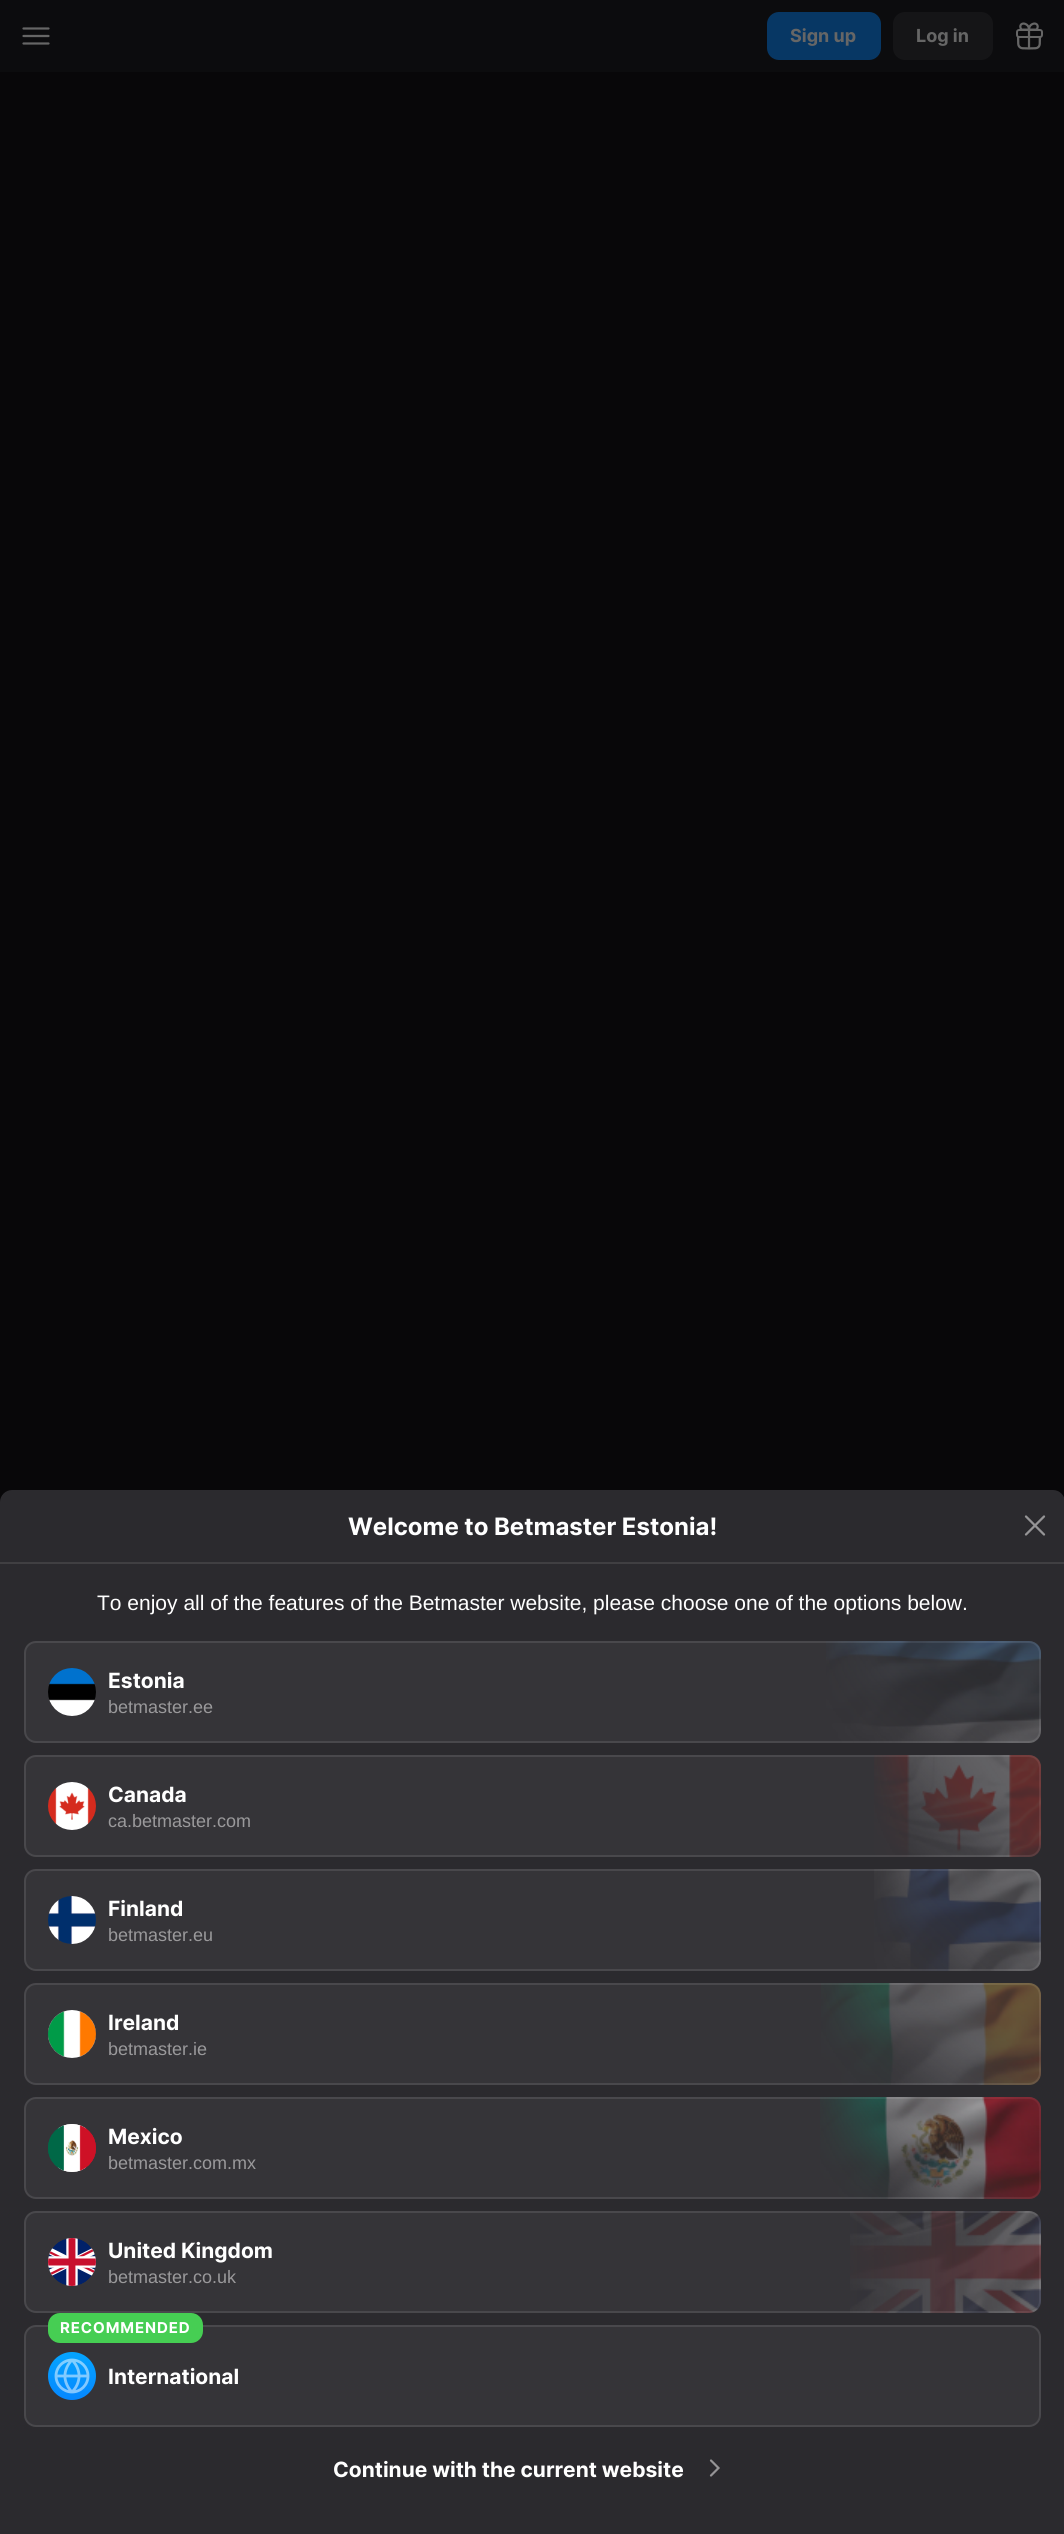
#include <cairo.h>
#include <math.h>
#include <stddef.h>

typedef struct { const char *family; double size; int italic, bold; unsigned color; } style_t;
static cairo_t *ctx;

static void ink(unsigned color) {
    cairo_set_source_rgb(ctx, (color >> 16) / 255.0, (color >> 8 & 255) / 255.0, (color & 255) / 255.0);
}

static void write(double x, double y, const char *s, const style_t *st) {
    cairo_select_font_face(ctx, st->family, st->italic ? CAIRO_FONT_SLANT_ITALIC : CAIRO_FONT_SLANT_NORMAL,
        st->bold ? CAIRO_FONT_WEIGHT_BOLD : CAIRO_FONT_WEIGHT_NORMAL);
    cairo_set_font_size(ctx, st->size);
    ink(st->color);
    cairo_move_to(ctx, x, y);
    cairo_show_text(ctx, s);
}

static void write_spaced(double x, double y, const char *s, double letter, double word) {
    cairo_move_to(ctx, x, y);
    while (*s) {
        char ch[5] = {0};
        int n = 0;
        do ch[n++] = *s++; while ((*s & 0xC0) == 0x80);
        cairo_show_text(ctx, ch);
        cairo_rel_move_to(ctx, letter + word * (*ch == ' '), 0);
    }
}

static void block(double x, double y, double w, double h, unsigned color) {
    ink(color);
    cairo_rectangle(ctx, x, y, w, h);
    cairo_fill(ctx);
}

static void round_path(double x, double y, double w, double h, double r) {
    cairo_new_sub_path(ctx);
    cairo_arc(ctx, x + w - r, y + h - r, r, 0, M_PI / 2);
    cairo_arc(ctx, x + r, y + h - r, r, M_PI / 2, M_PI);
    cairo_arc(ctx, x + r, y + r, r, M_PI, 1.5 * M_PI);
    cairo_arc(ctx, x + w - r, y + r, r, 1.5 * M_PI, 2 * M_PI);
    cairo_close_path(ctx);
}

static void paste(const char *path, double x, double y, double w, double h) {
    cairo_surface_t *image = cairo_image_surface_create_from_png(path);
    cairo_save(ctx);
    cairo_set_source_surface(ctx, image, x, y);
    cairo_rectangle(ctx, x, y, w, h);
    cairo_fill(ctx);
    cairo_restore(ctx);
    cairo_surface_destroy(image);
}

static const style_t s1 = {"Inter", 18, 0, 1, 0x666666};
static const style_t s2 = {"Inter", 24, 0, 1, 0xffffff};
static const style_t s3 = {"Liberation Sans", 21, 0, 0, 0xffffff};
static const style_t s4 = {"Inter", 21, 0, 1, 0xffffff};
static const style_t s5 = {"Liberation Sans", 18, 0, 0, 0x9a999b};

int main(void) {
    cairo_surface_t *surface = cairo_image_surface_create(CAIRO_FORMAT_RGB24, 1064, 2534);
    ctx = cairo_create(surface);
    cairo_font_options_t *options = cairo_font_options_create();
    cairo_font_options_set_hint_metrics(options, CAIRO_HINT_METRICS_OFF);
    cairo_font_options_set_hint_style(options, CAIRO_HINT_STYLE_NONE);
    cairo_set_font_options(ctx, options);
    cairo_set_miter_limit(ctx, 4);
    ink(0x080709);
    cairo_paint(ctx);
    block(0, 0, 1064, 72, 0x0c0c0e);
    cairo_new_path(ctx);
    cairo_move_to(ctx, 23.5, 28.5);
    cairo_line_to(ctx, 48.5, 28.5);
    cairo_move_to(ctx, 23.5, 36);
    cairo_line_to(ctx, 48.5, 36);
    cairo_move_to(ctx, 23.5, 43.5);
    cairo_line_to(ctx, 48.5, 43.5);
    ink(0x666666);
    cairo_set_line_width(ctx, 2.2);
    cairo_set_line_cap(ctx, CAIRO_LINE_CAP_ROUND);
    cairo_stroke(ctx);
    ink(0x073764);
    round_path(767, 12, 114, 48, 12);
    cairo_fill(ctx);
    write(790, 42, "Sign up", &s1);
    ink(0x151517);
    round_path(893, 12, 100, 48, 12);
    cairo_fill(ctx);
    write(916, 42, "Log in", &s1);
    paste("pic1.png", 1016, 22, 27, 28);
    ink(0x2b2a2e);
    cairo_new_path(ctx);
    cairo_move_to(ctx, 12, 1490);
    cairo_line_to(ctx, 1053, 1490);
    cairo_curve_to(ctx, 1059.5, 1490, 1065, 1495.5, 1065, 1502);
    cairo_line_to(ctx, 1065, 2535);
    cairo_line_to(ctx, 0, 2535);
    cairo_line_to(ctx, 0, 1502);
    cairo_curve_to(ctx, 0, 1495.5, 5.5, 1490, 12, 1490);
    cairo_close_path(ctx);
    cairo_fill(ctx);
    block(0, 1562, 1064, 2, 0x403f42);
    write(348, 1535, "Welcome to Betmaster Estonia!", &s2);
    paste("pic2.png", 1024, 1515, 22, 21);
    write(97, 1610, "To enjoy all of the features of the Betmaster website, please choose one of the options below.", &s3);
    ink(0x353438);
    round_path(24, 1641, 1017, 102, 12);
    cairo_fill(ctx);
    round_path(25, 1642, 1015, 100, 11);
    cairo_set_source_rgba(ctx, 1, 1, 1, 0.1);
    cairo_set_line_width(ctx, 2);
    cairo_set_line_cap(ctx, CAIRO_LINE_CAP_BUTT);
    cairo_stroke(ctx);
    paste("pic3.png", 48, 1668, 48, 48);
    write(108, 1688, "Estonia", &s4);
    write(108, 1713, "betmaster.ee", &s5);
    paste("pic4.png", 826, 1641, 215, 102);
    ink(0x353438);
    round_path(24, 1755, 1017, 102, 12);
    cairo_fill(ctx);
    round_path(25, 1756, 1015, 100, 11);
    cairo_set_source_rgba(ctx, 1, 1, 1, 0.1);
    cairo_stroke(ctx);
    paste("pic5.png", 48, 1782, 48, 48);
    write(108, 1802, "Canada", &s4);
    write(108, 1827, "ca.betmaster.com", &s5);
    paste("pic6.png", 874, 1755, 167, 102);
    ink(0x353438);
    round_path(24, 1869, 1017, 102, 12);
    cairo_fill(ctx);
    round_path(25, 1870, 1015, 100, 11);
    cairo_set_source_rgba(ctx, 1, 1, 1, 0.1);
    cairo_stroke(ctx);
    paste("pic7.png", 48, 1896, 48, 48);
    write(108, 1916, "Finland", &s4);
    write(108, 1941, "betmaster.eu", &s5);
    paste("pic8.png", 874, 1869, 167, 102);
    ink(0x353438);
    round_path(24, 1983, 1017, 102, 12);
    cairo_fill(ctx);
    round_path(25, 1984, 1015, 100, 11);
    cairo_set_source_rgba(ctx, 1, 1, 1, 0.1);
    cairo_stroke(ctx);
    paste("pic9.png", 48, 2010, 48, 48);
    write(108, 2030, "Ireland", &s4);
    write(108, 2055, "betmaster.ie", &s5);
    paste("pic10.png", 821, 1983, 220, 102);
    ink(0x353438);
    round_path(24, 2097, 1017, 102, 12);
    cairo_fill(ctx);
    round_path(25, 2098, 1015, 100, 11);
    cairo_set_source_rgba(ctx, 1, 1, 1, 0.1);
    cairo_stroke(ctx);
    paste("pic11.png", 48, 2124, 48, 48);
    write(108, 2144, "Mexico", &s4);
    write(108, 2169, "betmaster.com.mx", &s5);
    paste("pic12.png", 820, 2097, 221, 102);
    ink(0x353438);
    round_path(24, 2211, 1017, 102, 12);
    cairo_fill(ctx);
    round_path(25, 2212, 1015, 100, 11);
    cairo_set_source_rgba(ctx, 1, 1, 1, 0.1);
    cairo_stroke(ctx);
    paste("pic13.png", 48, 2238, 48, 48);
    write(108, 2258, "United Kingdom", &s4);
    write(108, 2283, "betmaster.co.uk", &s5);
    paste("pic14.png", 850, 2211, 191, 102);
    ink(0x353438);
    round_path(24, 2325, 1017, 102, 12);
    cairo_fill(ctx);
    round_path(25, 2326, 1015, 100, 11);
    cairo_set_source_rgba(ctx, 1, 1, 1, 0.1);
    cairo_stroke(ctx);
    ink(0x46ce53);
    round_path(48, 2313, 155, 30, 12);
    cairo_fill(ctx);
    cairo_select_font_face(ctx, "Inter", CAIRO_FONT_SLANT_NORMAL, CAIRO_FONT_WEIGHT_BOLD);
    cairo_set_font_size(ctx, 15);
    ink(0xffffff);
    write_spaced(60, 2333, "RECOMMENDED", 0.9, 0);
    paste("pic15.png", 48, 2352, 48, 48);
    write(108, 2384, "International", &s4);
    write(333, 2477, "Continue with the current website", &s4);
    cairo_new_path(ctx);
    cairo_move_to(ctx, 711, 2460.5);
    cairo_line_to(ctx, 718.5, 2468);
    cairo_line_to(ctx, 711, 2475.5);
    ink(0x959496);
    cairo_set_line_width(ctx, 2.2);
    cairo_set_line_cap(ctx, CAIRO_LINE_CAP_ROUND);
    cairo_stroke(ctx);
    cairo_surface_write_to_png(surface, "screenshot.png");
    cairo_font_options_destroy(options);
    cairo_destroy(ctx);
    cairo_surface_destroy(surface);
    return 0;
}
